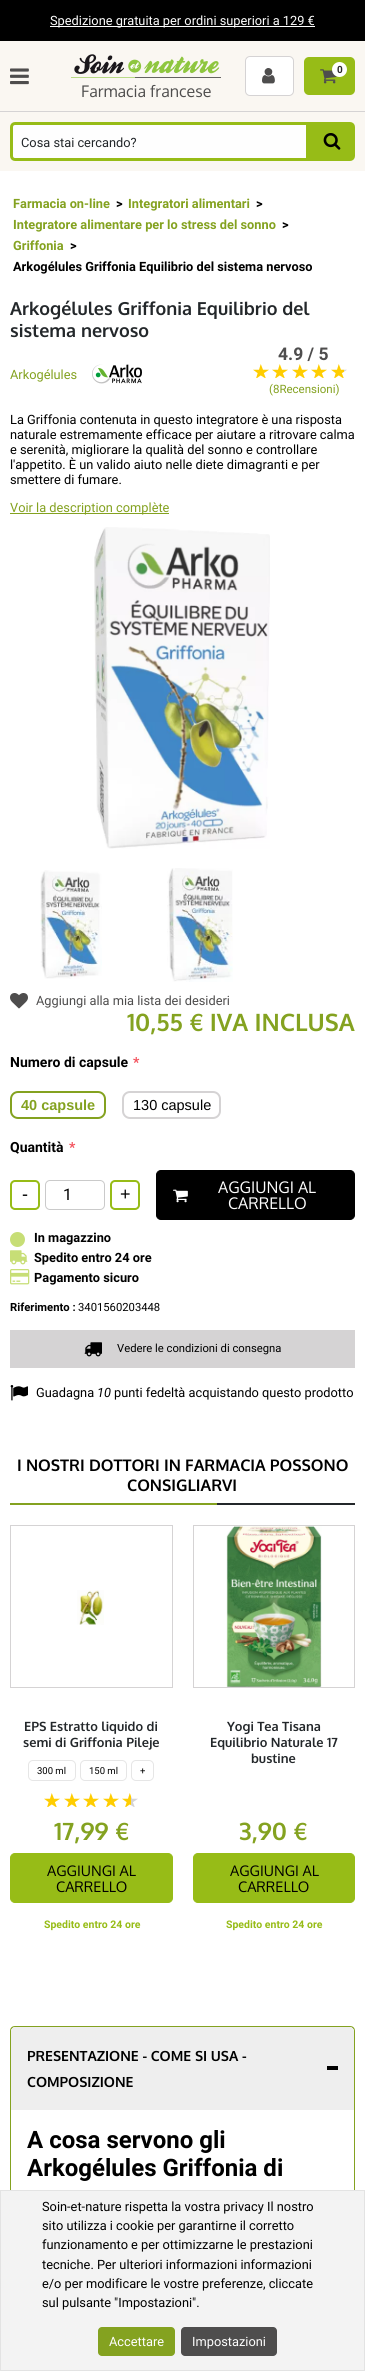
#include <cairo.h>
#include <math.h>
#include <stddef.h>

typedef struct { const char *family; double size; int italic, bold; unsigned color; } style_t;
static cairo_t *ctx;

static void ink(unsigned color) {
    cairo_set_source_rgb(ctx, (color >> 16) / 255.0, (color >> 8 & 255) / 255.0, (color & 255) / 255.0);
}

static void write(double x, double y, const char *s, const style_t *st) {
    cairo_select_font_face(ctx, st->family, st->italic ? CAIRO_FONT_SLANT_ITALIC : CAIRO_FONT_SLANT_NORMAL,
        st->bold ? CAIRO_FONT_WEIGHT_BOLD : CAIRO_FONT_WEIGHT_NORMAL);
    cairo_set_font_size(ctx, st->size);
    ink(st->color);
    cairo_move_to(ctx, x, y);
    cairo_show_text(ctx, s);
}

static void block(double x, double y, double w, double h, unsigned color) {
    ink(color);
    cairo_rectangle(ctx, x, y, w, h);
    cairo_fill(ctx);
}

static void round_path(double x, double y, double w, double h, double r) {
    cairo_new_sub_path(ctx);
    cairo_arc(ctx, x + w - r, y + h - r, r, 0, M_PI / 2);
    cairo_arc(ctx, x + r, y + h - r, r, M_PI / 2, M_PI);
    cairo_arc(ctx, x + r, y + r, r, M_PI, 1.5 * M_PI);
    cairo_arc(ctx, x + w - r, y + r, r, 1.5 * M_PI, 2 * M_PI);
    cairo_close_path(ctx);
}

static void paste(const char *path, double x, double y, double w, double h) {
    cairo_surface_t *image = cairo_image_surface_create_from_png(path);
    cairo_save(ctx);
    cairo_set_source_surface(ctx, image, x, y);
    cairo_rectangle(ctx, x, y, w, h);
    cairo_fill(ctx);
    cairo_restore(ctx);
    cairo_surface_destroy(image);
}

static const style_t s1 = {"Roboto", 12.8, 0, 0, 0xfefefe};
static const style_t s2 = {"Roboto", 10, 0, 1, 0x2b2b2b};
static const style_t s3 = {"Oxygen", 16, 0, 0, 0x4e4d4d};
static const style_t s4 = {"Roboto", 12.8, 0, 0, 0x23272a};
static const style_t s5 = {"Roboto", 12.8, 0, 1, 0x84a220};
static const style_t s6 = {"Roboto", 12.8, 0, 1, 0x000000};
static const style_t s7 = {"Oxygen", 18, 0, 1, 0x23272a};
static const style_t s8 = {"Roboto", 12.8, 0, 0, 0x84a220};
static const style_t s9 = {"Roboto", 17.5, 0, 1, 0x4e4d4d};
static const style_t s10 = {"Roboto", 11.5, 0, 0, 0x84a220};
static const style_t s11 = {"Roboto", 12.8, 0, 0, 0x000000};
static const style_t s12 = {"Roboto", 12.8, 0, 0, 0x4e4d4d};
static const style_t s13 = {"Oxygen", 24, 0, 1, 0x84a220};
static const style_t s14 = {"Roboto", 14, 0, 1, 0x000000};
static const style_t s15 = {"Roboto", 14, 0, 1, 0xf3515c};
static const style_t s16 = {"Liberation Sans", 14.5, 0, 1, 0x84a220};
static const style_t s17 = {"Liberation Sans", 14.5, 0, 0, 0x000000};
static const style_t s18 = {"Liberation Sans", 18, 0, 0, 0x000000};
static const style_t s19 = {"Roboto", 16, 0, 0, 0x000000};
static const style_t s20 = {"Oxygen", 16, 0, 0, 0xfefefe};
static const style_t s21 = {"Roboto", 11.25, 0, 1, 0x000000};
static const style_t s22 = {"Roboto", 11.25, 0, 0, 0x000000};
static const style_t s23 = {"Roboto", 12.8, 1, 0, 0x000000};
static const style_t s24 = {"Oxygen", 16, 0, 1, 0x000000};
static const style_t s25 = {"Oxygen", 12.8, 0, 1, 0x23272a};
static const style_t s26 = {"Roboto", 9.5, 0, 0, 0x000000};
static const style_t s27 = {"Oxygen", 14.5, 0, 0, 0x000000};
static const style_t s28 = {"Roboto", 10.5, 0, 1, 0x97bc17};
static const style_t s29 = {"Oxygen", 14, 0, 1, 0x000000};
static const style_t s30 = {"Roboto", 24, 0, 1, 0x000000};

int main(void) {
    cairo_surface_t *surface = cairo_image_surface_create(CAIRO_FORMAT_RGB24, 365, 2371);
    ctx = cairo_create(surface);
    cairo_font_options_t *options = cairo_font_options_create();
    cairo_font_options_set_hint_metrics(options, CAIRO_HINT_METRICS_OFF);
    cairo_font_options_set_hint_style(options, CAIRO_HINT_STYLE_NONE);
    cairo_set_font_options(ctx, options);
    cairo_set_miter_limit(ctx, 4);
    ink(0xffffff);
    cairo_paint(ctx);
    block(0, 41, 365, 130, 0xfaf7f2);
    block(0, 0, 365, 41, 0x000000);
    block(50, 26, 265, 1, 0xffffff);
    write(50, 25, "Spedizione gratuita per ordini superiori a 129 €", &s1);
    paste("pic1.png", 10, 68, 19, 17);
    ink(0xffffff);
    round_path(245.5, 56.5, 48, 39, 4.5);
    cairo_fill_preserve(ctx);
    ink(0xd5d3d4);
    cairo_set_line_width(ctx, 1);
    cairo_stroke(ctx);
    paste("pic2.png", 262, 68, 13, 16);
    ink(0x97bc17);
    round_path(304, 57, 51, 38, 5);
    cairo_fill(ctx);
    paste("pic3.png", 320, 69, 17, 15);
    ink(0xffffff);
    cairo_arc(ctx, 339.5, 69.5, 7.5, 0, 2 * M_PI);
    cairo_fill(ctx);
    write(337, 73, "0", &s2);
    paste("pic4.png", 71, 54, 150, 24);
    write(81, 97, "Farmacia francese", &s3);
    block(0, 111, 365, 1, 0xd5d3d4);
    ink(0xfefefe);
    cairo_new_path(ctx);
    cairo_move_to(ctx, 15, 123.5);
    cairo_line_to(ctx, 307.5, 123.5);
    cairo_line_to(ctx, 307.5, 159.5);
    cairo_line_to(ctx, 15, 159.5);
    cairo_curve_to(ctx, 13, 159.5, 11.5, 158, 11.5, 156);
    cairo_line_to(ctx, 11.5, 127);
    cairo_curve_to(ctx, 11.5, 125, 13, 123.5, 15, 123.5);
    cairo_close_path(ctx);
    cairo_fill_preserve(ctx);
    ink(0x97bc17);
    cairo_set_line_width(ctx, 3);
    cairo_stroke(ctx);
    write(21, 147, "Cosa stai cercando?", &s4);
    ink(0x97bc17);
    cairo_new_path(ctx);
    cairo_move_to(ctx, 310.5, 123.5);
    cairo_line_to(ctx, 350, 123.5);
    cairo_curve_to(ctx, 352, 123.5, 353.5, 125, 353.5, 127);
    cairo_line_to(ctx, 353.5, 156);
    cairo_curve_to(ctx, 353.5, 158, 352, 159.5, 350, 159.5);
    cairo_line_to(ctx, 310.5, 159.5);
    cairo_close_path(ctx);
    cairo_fill_preserve(ctx);
    cairo_stroke(ctx);
    paste("pic5.png", 323, 133, 18, 17);
    write(13, 208, "Farmacia on-line", &s5);
    write(116, 208, ">", &s6);
    write(128, 208, "Integratori alimentari", &s5);
    write(256, 208, ">", &s6);
    write(13, 229, "Integratore alimentare per lo stress del sonno", &s5);
    write(282, 229, ">", &s6);
    write(13, 250, "Griffonia", &s5);
    write(70, 250, ">", &s6);
    write(13, 271, "Arkogélules Griffonia Equilibrio del sistema nervoso", &s6);
    write(10, 315, "Arkogélules Griffonia Equilibrio del", &s7);
    write(10, 337, "sistema nervoso", &s7);
    write(10, 379, "Arkogélules", &s8);
    paste("pic6.png", 92, 364, 50, 20);
    write(278, 360, "4.9 / 5", &s9);
    paste("pic7.png", 253, 364, 16, 14);
    paste("pic7.png", 272, 364, 16, 14);
    paste("pic7.png", 292, 364, 16, 14);
    paste("pic7.png", 311, 364, 16, 14);
    paste("pic8.png", 331, 364, 16, 14);
    write(269, 393, "(8Recensioni)", &s10);
    write(10, 424, "La Griffonia contenuta in questo integratore è una risposta", &s11);
    write(10, 439, "naturale estremamente efficace per aiutare a ritrovare calma", &s11);
    write(10, 454, "e serenità, migliorare la qualità del sonno e controllare", &s11);
    write(10, 469, "l'appetito. È un valido aiuto nelle diete dimagranti e per", &s11);
    write(10, 484, "smettere di fumare.", &s11);
    block(10, 513, 159, 1, 0x84a220);
    write(10, 512, "Voir la description complète", &s8);
    paste("pic9.png", 94, 527, 176, 322);
    paste("pic10.png", 40, 870, 62, 109);
    paste("pic11.png", 167, 868, 66, 114);
    paste("pic12.png", 10, 993, 18, 16);
    write(36, 1005, "Aggiungi alla mia lista dei desideri", &s12);
    write(127, 1031, "10,55 € IVA INCLUSA", &s13);
    write(10, 1067, "Numero di capsule", &s14);
    write(133, 1067, "*", &s15);
    round_path(11, 1092, 94, 26, 7);
    ink(0x84a220);
    cairo_set_line_width(ctx, 2);
    cairo_stroke(ctx);
    write(21, 1110, "40 capsule", &s16);
    round_path(123, 1092, 97, 26, 7);
    ink(0xd5d3d4);
    cairo_stroke(ctx);
    write(133, 1110, "130 capsule", &s17);
    write(10, 1152, "Quantità", &s14);
    write(69, 1152, "*", &s15);
    round_path(11, 1181, 28, 28, 4);
    ink(0x97bc17);
    cairo_stroke(ctx);
    write(22, 1200, "-", &s18);
    round_path(45.5, 1180.5, 59, 29, 4.5);
    ink(0xcacaca);
    cairo_set_line_width(ctx, 1);
    cairo_stroke(ctx);
    write(63, 1200, "1", &s19);
    round_path(111, 1181, 28, 28, 4);
    ink(0x97bc17);
    cairo_set_line_width(ctx, 2);
    cairo_stroke(ctx);
    write(120, 1200, "+", &s18);
    round_path(156.5, 1170.5, 198, 49, 4.5);
    cairo_fill_preserve(ctx);
    cairo_set_line_width(ctx, 1);
    cairo_stroke(ctx);
    paste("pic13.png", 173, 1189, 15, 14);
    write(218, 1193, "AGGIUNGI AL", &s20);
    write(228, 1209, "CARRELLO", &s20);
    ink(0xc7de76);
    cairo_new_path(ctx);
    cairo_arc(ctx, 17.5, 1239.5, 7.5, 0, 2 * M_PI);
    cairo_fill(ctx);
    write(34, 1242, "In magazzino", &s6);
    paste("pic14.png", 10, 1250, 18, 15);
    write(34, 1262, "Spedito entro 24 ore", &s6);
    paste("pic15.png", 10, 1269, 20, 16);
    write(34, 1282, "Pagamento sicuro", &s6);
    write(10, 1311, "Riferimento :", &s21);
    write(78, 1311, "3401560203448", &s22);
    block(10, 1330, 345, 38, 0xd5d3d4);
    paste("pic16.png", 84, 1342, 18, 15);
    write(117, 1352, "Vedere le condizioni di consegna", &s22);
    paste("pic17.png", 10, 1385, 18, 16);
    write(36, 1397, "Guadagna", &s11);
    write(97, 1397, "10", &s23);
    write(114, 1397, "punti fedeltà acquistando questo prodotto", &s11);
    write(17, 1471, "I NOSTRI DOTTORI IN FARMACIA POSSONO", &s24);
    write(127, 1491, "CONSIGLIARVI", &s24);
    block(10, 1503, 207, 2, 0x84a220);
    block(217, 1503, 138, 2, 0x23272a);
    cairo_rectangle(ctx, 10.5, 1525.5, 162, 162);
    ink(0xd5d3d4);
    cairo_stroke(ctx);
    paste("pic18.png", 77, 1590, 27, 35);
    write(24, 1731, "EPS Estratto liquido di", &s25);
    write(23, 1747, "semi di Griffonia Pileje", &s25);
    round_path(28.5, 1760.5, 47, 20, 4.5);
    ink(0xe6e6e6);
    cairo_stroke(ctx);
    write(37, 1774, "300 ml", &s26);
    round_path(80.5, 1760.5, 46, 20, 4.5);
    ink(0xe6e6e6);
    cairo_stroke(ctx);
    write(89, 1774, "150 ml", &s26);
    round_path(131.5, 1760.5, 22, 20, 4.5);
    ink(0xe6e6e6);
    cairo_stroke(ctx);
    write(140, 1774, "+", &s26);
    paste("pic7.png", 44, 1793, 16, 14);
    paste("pic7.png", 64, 1793, 16, 14);
    paste("pic7.png", 83, 1793, 16, 14);
    paste("pic7.png", 103, 1793, 16, 14);
    paste("pic19.png", 122, 1793, 16, 14);
    write(54, 1840, "17,99 €", &s13);
    ink(0x97bc17);
    round_path(10.5, 1853.5, 162, 49, 4.5);
    cairo_fill_preserve(ctx);
    cairo_stroke(ctx);
    write(47, 1876, "AGGIUNGI AL", &s27);
    write(56, 1892, "CARRELLO", &s27);
    write(44, 1928, "Spedito entro 24 ore", &s28);
    cairo_rectangle(ctx, 193.5, 1525.5, 161, 162);
    ink(0xd5d3d4);
    cairo_stroke(ctx);
    paste("pic20.png", 226, 1526, 96, 161);
    write(227, 1731, "Yogi Tea Tisana", &s25);
    write(210, 1747, "Equilibrio Naturale 17", &s25);
    write(251, 1763, "bustine", &s25);
    write(239, 1840, "3,90 €", &s13);
    ink(0x97bc17);
    round_path(193.5, 1853.5, 161, 49, 4.5);
    cairo_fill_preserve(ctx);
    cairo_stroke(ctx);
    write(230, 1876, "AGGIUNGI AL", &s27);
    write(238, 1892, "CARRELLO", &s27);
    write(226, 1928, "Spedito entro 24 ore", &s28);
    ink(0x84a220);
    cairo_set_fill_rule(ctx, CAIRO_FILL_RULE_EVEN_ODD);
    cairo_new_path(ctx);
    cairo_move_to(ctx, 15, 2026);
    cairo_line_to(ctx, 350, 2026);
    cairo_curve_to(ctx, 353, 2026, 355, 2028, 355, 2031);
    cairo_line_to(ctx, 355, 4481);
    cairo_line_to(ctx, 10, 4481);
    cairo_line_to(ctx, 10, 2031);
    cairo_curve_to(ctx, 10, 2028, 12, 2026, 15, 2026);
    cairo_close_path(ctx);
    cairo_move_to(ctx, 15, 2027);
    cairo_line_to(ctx, 350, 2027);
    cairo_curve_to(ctx, 352, 2027, 354, 2029, 354, 2031);
    cairo_line_to(ctx, 354, 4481);
    cairo_line_to(ctx, 11, 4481);
    cairo_line_to(ctx, 11, 2031);
    cairo_curve_to(ctx, 11, 2029, 13, 2027, 15, 2027);
    cairo_close_path(ctx);
    cairo_fill(ctx);
    ink(0xeeeeee);
    cairo_new_path(ctx);
    cairo_move_to(ctx, 15, 2027);
    cairo_line_to(ctx, 350, 2027);
    cairo_curve_to(ctx, 352, 2027, 354, 2029, 354, 2031);
    cairo_line_to(ctx, 354, 2110);
    cairo_line_to(ctx, 11, 2110);
    cairo_line_to(ctx, 11, 2031);
    cairo_curve_to(ctx, 11, 2029, 13, 2027, 15, 2027);
    cairo_close_path(ctx);
    cairo_fill(ctx);
    write(27, 2061, "PRESENTAZIONE - COME SI USA -", &s29);
    block(327, 2066, 11, 4, 0x000000);
    write(27, 2087, "COMPOSIZIONE", &s29);
    write(27, 2148, "A cosa servono gli", &s30);
    write(27, 2176, "Arkogélules Griffonia di", &s30);
    ink(0xf3f3f3);
    cairo_rectangle(ctx, 0.5, 2190.5, 364, 180);
    cairo_fill_preserve(ctx);
    ink(0xe3e3e3);
    cairo_stroke(ctx);
    write(42, 2211, "Soin-et-nature rispetta la vostra privacy Il nostro", &s11);
    write(42, 2230, "sito utilizza i cookie per garantirne il corretto", &s11);
    write(42, 2249, "funzionamento e per ottimizzarne le prestazioni", &s11);
    write(42, 2269, "tecniche. Per ulteriori informazioni informazioni", &s11);
    write(42, 2288, "e/o per modificare le vostre preferenze, cliccate", &s11);
    write(42, 2307, "sul pulsante \"Impostazioni\".", &s11);
    ink(0x84a220);
    round_path(98, 2327, 77, 29, 4);
    cairo_fill(ctx);
    write(109, 2346, "Accettare", &s1);
    ink(0x4e4d4d);
    round_path(181, 2327, 96, 29, 4);
    cairo_fill(ctx);
    write(192, 2346, "Impostazioni", &s1);
    cairo_surface_write_to_png(surface, "screenshot.png");
    cairo_font_options_destroy(options);
    cairo_destroy(ctx);
    cairo_surface_destroy(surface);
    return 0;
}
